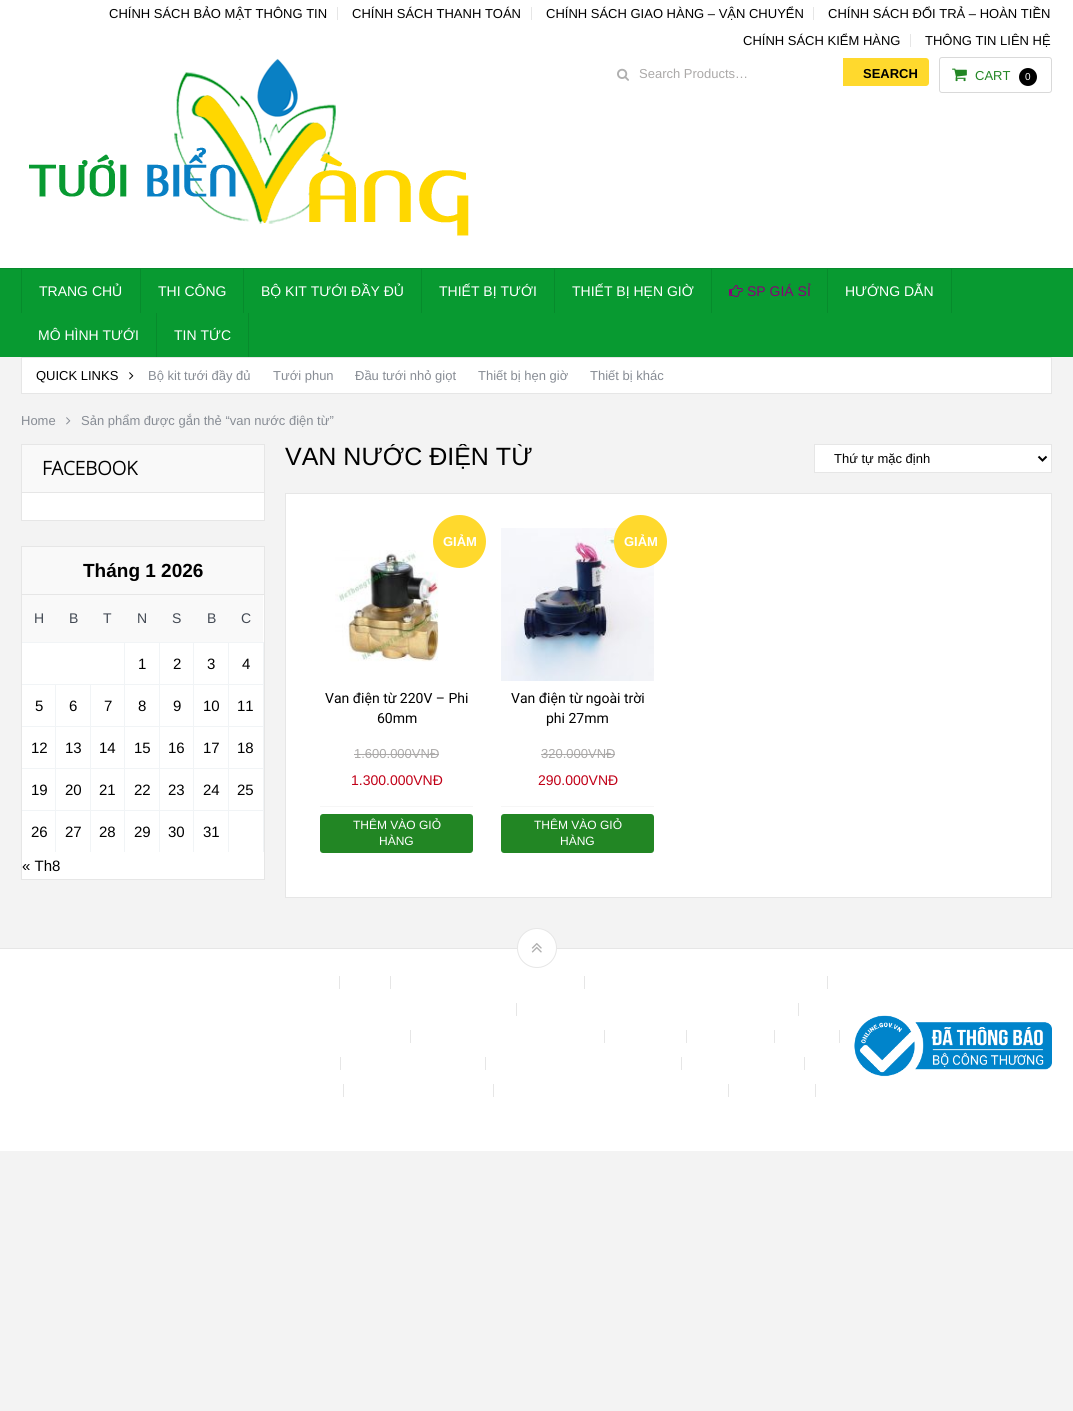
#include <cairo.h>
#include <math.h>
#include <stddef.h>

typedef struct { const char *family; double size; int italic, bold; unsigned color; } style_t;
static cairo_t *ctx;

static void ink(unsigned color) {
    cairo_set_source_rgb(ctx, (color >> 16) / 255.0, (color >> 8 & 255) / 255.0, (color & 255) / 255.0);
}

static void write(double x, double y, const char *s, const style_t *st) {
    cairo_select_font_face(ctx, st->family, st->italic ? CAIRO_FONT_SLANT_ITALIC : CAIRO_FONT_SLANT_NORMAL,
        st->bold ? CAIRO_FONT_WEIGHT_BOLD : CAIRO_FONT_WEIGHT_NORMAL);
    cairo_set_font_size(ctx, st->size);
    ink(st->color);
    cairo_move_to(ctx, x, y);
    cairo_show_text(ctx, s);
}

static void block(double x, double y, double w, double h, unsigned color) {
    ink(color);
    cairo_rectangle(ctx, x, y, w, h);
    cairo_fill(ctx);
}

static void round_path(double x, double y, double w, double h, double r) {
    cairo_new_sub_path(ctx);
    cairo_arc(ctx, x + w - r, y + h - r, r, 0, M_PI / 2);
    cairo_arc(ctx, x + r, y + h - r, r, M_PI / 2, M_PI);
    cairo_arc(ctx, x + r, y + r, r, M_PI, 1.5 * M_PI);
    cairo_arc(ctx, x + w - r, y + r, r, 1.5 * M_PI, 2 * M_PI);
    cairo_close_path(ctx);
}

static void paste(const char *path, double x, double y, double w, double h) {
    cairo_surface_t *image = cairo_image_surface_create_from_png(path);
    cairo_save(ctx);
    cairo_set_source_surface(ctx, image, x, y);
    cairo_rectangle(ctx, x, y, w, h);
    cairo_fill(ctx);
    cairo_restore(ctx);
    cairo_surface_destroy(image);
}

static const style_t s1 = {"Liberation Sans", 13, 0, 0, 0x000000};
static const style_t s2 = {"Liberation Sans", 13, 0, 0, 0xaba9a8};
static const style_t s3 = {"Liberation Sans", 13, 0, 1, 0x000000};
static const style_t s4 = {"Liberation Sans", 13, 0, 0, 0x228624};
static const style_t s5 = {"Liberation Sans", 10, 0, 0, 0xffffff};
static const style_t s6 = {"Liberation Sans", 14, 0, 0, 0xffffff};
static const style_t s7 = {"Liberation Sans", 14, 0, 0, 0x890077};
static const style_t s8 = {"Liberation Sans", 13, 0, 0, 0x878c94};
static const style_t s9 = {"Open Sans", 19, 0, 1, 0x000000};
static const style_t s10 = {"Liberation Sans", 19, 0, 1, 0x000000};
static const style_t s11 = {"Liberation Sans", 14, 0, 0, 0x434a54};
static const style_t s12 = {"Liberation Sans", 15, 0, 0, 0x000000};
static const style_t s13 = {"Liberation Sans", 25, 0, 0, 0x000000};
static const style_t s14 = {"Liberation Sans", 13, 0, 1, 0xffffff};
static const style_t s15 = {"Roboto", 14, 0, 0, 0x000000};
static const style_t s16 = {"Liberation Sans", 14, 0, 0, 0xc10017};
static const style_t s17 = {"Liberation Sans", 12, 0, 0, 0xffffff};

int main(void) {
    cairo_surface_t *surface = cairo_image_surface_create(CAIRO_FORMAT_RGB24, 1073, 1411);
    ctx = cairo_create(surface);
    cairo_font_options_t *options = cairo_font_options_create();
    cairo_font_options_set_hint_metrics(options, CAIRO_HINT_METRICS_OFF);
    cairo_font_options_set_hint_style(options, CAIRO_HINT_STYLE_NONE);
    cairo_set_font_options(ctx, options);
    cairo_set_miter_limit(ctx, 4);
    ink(0xf3f3f3);
    cairo_paint(ctx);
    block(0, 0, 1073, 268, 0xffffff);
    block(337, 7, 1, 13, 0xe6e6e6);
    write(109, 18, "CHÍNH SÁCH BẢO MẬT THÔNG TIN", &s1);
    block(531, 7, 1, 13, 0xe6e6e6);
    write(352, 18, "CHÍNH SÁCH THANH TOÁN", &s1);
    block(813, 7, 1, 13, 0xe6e6e6);
    write(546, 18, "CHÍNH SÁCH GIAO HÀNG – VẬN CHUYỂN", &s1);
    write(828, 18, "CHÍNH SÁCH ĐỔI TRẢ – HOÀN TIỀN", &s1);
    block(910, 34, 1, 13, 0xe6e6e6);
    write(743, 45, "CHÍNH SÁCH KIỂM HÀNG", &s1);
    write(925, 45, "THÔNG TIN LIÊN HỆ", &s1);
    paste("pic1.png", 29, 58, 440, 178);
    paste("pic2.png", 617, 68, 12, 13);
    write(639, 78, "Search Products…", &s2);
    ink(0xffd92d);
    cairo_new_path(ctx);
    cairo_move_to(ctx, 843, 58);
    cairo_line_to(ctx, 926, 58);
    cairo_curve_to(ctx, 927.5, 58, 929, 59.5, 929, 61);
    cairo_line_to(ctx, 929, 83);
    cairo_curve_to(ctx, 929, 84.5, 927.5, 86, 926, 86);
    cairo_line_to(ctx, 843, 86);
    cairo_close_path(ctx);
    cairo_fill(ctx);
    write(863, 78, "SEARCH", &s3);
    round_path(939.5, 57.5, 112, 35, 2.5);
    ink(0xd9d9d9);
    cairo_set_line_width(ctx, 1);
    cairo_stroke(ctx);
    paste("pic3.png", 952, 68, 15, 14);
    write(975, 80, "CART", &s4);
    ink(0x000000);
    cairo_new_path(ctx);
    cairo_arc(ctx, 1028, 77, 9, 0, 2 * M_PI);
    cairo_fill(ctx);
    write(1025, 80, "0", &s5);
    block(0, 269, 1073, 88, 0x089a31);
    block(0, 268, 1073, 1, 0x078b2c);
    block(140, 269, 1, 44, 0x078b2c);
    block(21, 269, 1, 44, 0x078b2c);
    write(39, 296, "TRANG CHỦ", &s6);
    block(243, 269, 1, 44, 0x078b2c);
    write(158, 296, "THI CÔNG", &s6);
    block(421, 269, 1, 44, 0x078b2c);
    write(261, 296, "BỘ KIT TƯỚI ĐẦY ĐỦ", &s6);
    block(554, 269, 1, 44, 0x078b2c);
    write(439, 296, "THIẾT BỊ TƯỚI", &s6);
    block(711, 269, 1, 44, 0x078b2c);
    write(572, 296, "THIẾT BỊ HẸN GIỜ", &s6);
    block(827, 269, 1, 44, 0x078b2c);
    paste("pic4.png", 729, 285, 14, 12);
    write(747, 296, "SP GIÁ SỈ", &s7);
    block(951, 269, 1, 44, 0x078b2c);
    write(845, 296, "HƯỚNG DẪN", &s6);
    block(156, 313, 1, 44, 0x078b2c);
    write(38, 340, "MÔ HÌNH TƯỚI", &s6);
    block(248, 313, 1, 44, 0x078b2c);
    write(174, 340, "TIN TỨC", &s6);
    cairo_rectangle(ctx, 21.5, 357.5, 1030, 36);
    cairo_fill_preserve(ctx);
    ink(0xe6e6e6);
    cairo_stroke(ctx);
    write(36, 380, "QUICK LINKS", &s1);
    paste("pic5.png", 129, 372, 5, 8);
    write(148, 380, "Bộ kit tưới đầy đủ", &s8);
    write(273, 380, "Tưới phun", &s8);
    write(355, 380, "Đầu tưới nhỏ giọt", &s8);
    write(478, 380, "Thiết bị hẹn giờ", &s8);
    write(590, 380, "Thiết bị khác", &s8);
    write(21, 425, "Home", &s8);
    paste("pic6.png", 66, 417, 5, 8);
    write(81, 425, "Sản phẩm được gắn thẻ “van nước điện từ”", &s8);
    block(22, 493, 242, 27, 0xffffff);
    cairo_rectangle(ctx, 21.5, 444.5, 243, 76);
    ink(0xe6e6e6);
    cairo_stroke(ctx);
    block(22, 445, 242, 47, 0xf9f9f9);
    block(22, 492, 242, 1, 0xe6e6e6);
    write(42, 475, "FACEBOOK", &s9);
    block(22, 595, 242, 284, 0xffffff);
    cairo_rectangle(ctx, 21.5, 546.5, 243, 333);
    ink(0xe6e6e6);
    cairo_stroke(ctx);
    block(22, 547, 242, 47, 0xf9f9f9);
    block(22, 594, 242, 1, 0xe6e6e6);
    write(83, 577, "Tháng 1 2026", &s10);
    block(22, 595, 241, 47, 0xf9f9f9);
    write(34, 623, "H", &s11);
    write(69, 623, "B", &s11);
    write(103, 623, "T", &s11);
    write(137, 623, "N", &s11);
    write(172, 623, "S", &s11);
    write(207, 623, "B", &s11);
    write(241, 623, "C", &s11);
    block(22, 642, 242, 1, 0xf1f4f6);
    block(22, 684, 242, 1, 0xf1f4f6);
    block(22, 726, 242, 1, 0xf1f4f6);
    block(22, 768, 242, 1, 0xf1f4f6);
    block(22, 810, 242, 1, 0xf1f4f6);
    block(124, 810, 1, 42, 0xf1f4f6);
    block(124, 768, 1, 43, 0xf1f4f6);
    block(124, 726, 1, 43, 0xf1f4f6);
    block(124, 684, 1, 43, 0xf1f4f6);
    block(124, 642, 1, 43, 0xf1f4f6);
    block(159, 810, 1, 42, 0xf1f4f6);
    block(159, 768, 1, 43, 0xf1f4f6);
    block(159, 726, 1, 43, 0xf1f4f6);
    block(159, 684, 1, 43, 0xf1f4f6);
    block(159, 642, 1, 43, 0xf1f4f6);
    write(138, 669, "1", &s12);
    block(193, 810, 1, 42, 0xf1f4f6);
    block(193, 768, 1, 43, 0xf1f4f6);
    block(193, 726, 1, 43, 0xf1f4f6);
    block(193, 684, 1, 43, 0xf1f4f6);
    block(193, 642, 1, 43, 0xf1f4f6);
    write(173, 669, "2", &s12);
    block(228, 810, 1, 42, 0xf1f4f6);
    block(228, 768, 1, 43, 0xf1f4f6);
    block(228, 726, 1, 43, 0xf1f4f6);
    block(228, 684, 1, 43, 0xf1f4f6);
    block(228, 642, 1, 43, 0xf1f4f6);
    write(207, 669, "3", &s12);
    block(263, 810, 1, 42, 0xf1f4f6);
    block(263, 768, 1, 43, 0xf1f4f6);
    block(263, 726, 1, 43, 0xf1f4f6);
    block(263, 684, 1, 43, 0xf1f4f6);
    block(263, 642, 1, 43, 0xf1f4f6);
    write(242, 669, "4", &s12);
    block(55, 810, 1, 42, 0xf1f4f6);
    block(55, 768, 1, 43, 0xf1f4f6);
    block(55, 726, 1, 43, 0xf1f4f6);
    block(55, 684, 1, 43, 0xf1f4f6);
    write(35, 711, "5", &s12);
    block(90, 810, 1, 42, 0xf1f4f6);
    block(90, 768, 1, 43, 0xf1f4f6);
    block(90, 726, 1, 43, 0xf1f4f6);
    block(90, 684, 1, 43, 0xf1f4f6);
    write(69, 711, "6", &s12);
    write(104, 711, "7", &s12);
    write(138, 711, "8", &s12);
    write(173, 711, "9", &s12);
    write(203, 711, "10", &s12);
    write(237, 711, "11", &s12);
    write(31, 753, "12", &s12);
    write(65, 753, "13", &s12);
    write(99, 753, "14", &s12);
    write(134, 753, "15", &s12);
    write(168, 753, "16", &s12);
    write(203, 753, "17", &s12);
    write(237, 753, "18", &s12);
    write(31, 795, "19", &s12);
    write(65, 795, "20", &s12);
    write(99, 795, "21", &s12);
    write(134, 795, "22", &s12);
    write(168, 795, "23", &s12);
    write(203, 795, "24", &s12);
    write(237, 795, "25", &s12);
    write(31, 837, "26", &s12);
    write(65, 837, "27", &s12);
    write(99, 837, "28", &s12);
    write(134, 837, "29", &s12);
    write(168, 837, "30", &s12);
    write(203, 837, "31", &s12);
    write(22, 871, "« Th8", &s12);
    cairo_save(ctx);
    cairo_rectangle(ctx, 21, 444, 1031, 474);
    cairo_clip(ctx);
    write(285, 465, "VAN NƯỚC ĐIỆN TỪ", &s13);
    cairo_restore(ctx);
    ink(0xffffff);
    cairo_rectangle(ctx, 814.5, 444.5, 237, 28);
    cairo_fill_preserve(ctx);
    ink(0xe6e6e6);
    cairo_stroke(ctx);
    cairo_new_path(ctx);
    cairo_move_to(ctx, 1038.5, 456.5);
    cairo_line_to(ctx, 1042.5, 460.5);
    cairo_line_to(ctx, 1046.5, 456.5);
    ink(0x000000);
    cairo_set_line_width(ctx, 2);
    cairo_stroke(ctx);
    write(834, 463, "Thứ tự mặc định", &s1);
    ink(0xffffff);
    cairo_rectangle(ctx, 285.5, 493.5, 766, 404);
    cairo_fill_preserve(ctx);
    ink(0xe6e6e6);
    cairo_set_line_width(ctx, 1);
    cairo_stroke(ctx);
    paste("pic7.png", 335, 550, 104, 112);
    ink(0xffd92d);
    cairo_arc(ctx, 459.5, 541.5, 26.5, 0, 2 * M_PI);
    cairo_fill(ctx);
    write(443, 546, "GIẢM", &s14);
    write(325, 703, "Van điện từ 220V – Phi", &s15);
    write(377, 723, "60mm", &s15);
    block(320, 806, 153, 1, 0xf6f6f6);
    write(354, 758, "1.600.000VNĐ", &s2);
    block(354, 754, 85, 1, 0xaba9a8);
    write(351, 785, "1.300.000VNĐ", &s16);
    ink(0x228624);
    round_path(320, 814, 153, 39, 3);
    cairo_fill(ctx);
    write(353, 829, "THÊM VÀO GIỎ", &s17);
    write(379, 845, "HÀNG", &s17);
    paste("pic8.png", 501, 528, 153, 153);
    ink(0xffd92d);
    cairo_arc(ctx, 640.5, 541.5, 26.5, 0, 2 * M_PI);
    cairo_fill(ctx);
    write(624, 546, "GIẢM", &s14);
    write(511, 703, "Van điện từ ngoài trời", &s15);
    write(546, 723, "phi 27mm", &s15);
    block(501, 806, 153, 1, 0xf6f6f6);
    write(541, 758, "320.000", &s2);
    block(541, 754, 47, 1, 0xaba9a8);
    block(588, 754, 27, 1, 0xaba9a8);
    write(588, 758, "VNĐ", &s2);
    write(538, 785, "290.000VNĐ", &s16);
    ink(0x228624);
    round_path(501, 814, 153, 39, 3);
    cairo_fill(ctx);
    write(534, 829, "THÊM VÀO GIỎ", &s17);
    write(560, 845, "HÀNG", &s17);
    block(0, 949, 1073, 202, 0xffffff);
    block(0, 948, 1073, 1, 0xe6e6e6);
    ink(0xffffff);
    cairo_new_path(ctx);
    cairo_arc(ctx, 537, 948, 19.5, 0, 2 * M_PI);
    cairo_fill_preserve(ctx);
    ink(0xe6e6e6);
    cairo_stroke(ctx);
    paste("pic9.png", 531, 943, 11, 10);
    block(339, 976, 1, 13, 0xe6e6e6);
    block(390, 976, 1, 13, 0xe6e6e6);
    block(584, 976, 1, 13, 0xe6e6e6);
    block(827, 976, 1, 13, 0xe6e6e6);
    block(516, 1003, 1, 13, 0xe6e6e6);
    block(798, 1003, 1, 13, 0xe6e6e6);
    block(410, 1030, 1, 13, 0xe6e6e6);
    block(604, 1030, 1, 13, 0xe6e6e6);
    block(686, 1030, 1, 13, 0xe6e6e6);
    block(774, 1030, 1, 13, 0xe6e6e6);
    block(839, 1030, 1, 13, 0xe6e6e6);
    block(340, 1057, 1, 13, 0xe6e6e6);
    block(485, 1057, 1, 13, 0xe6e6e6);
    block(681, 1057, 1, 13, 0xe6e6e6);
    block(804, 1057, 1, 13, 0xe6e6e6);
    block(343, 1084, 1, 13, 0xe6e6e6);
    block(493, 1084, 1, 13, 0xe6e6e6);
    block(728, 1084, 1, 13, 0xe6e6e6);
    block(815, 1084, 1, 13, 0xe6e6e6);
    paste("pic10.png", 854, 1015, 198, 62);
    cairo_surface_write_to_png(surface, "screenshot.png");
    cairo_font_options_destroy(options);
    cairo_destroy(ctx);
    cairo_surface_destroy(surface);
    return 0;
}
